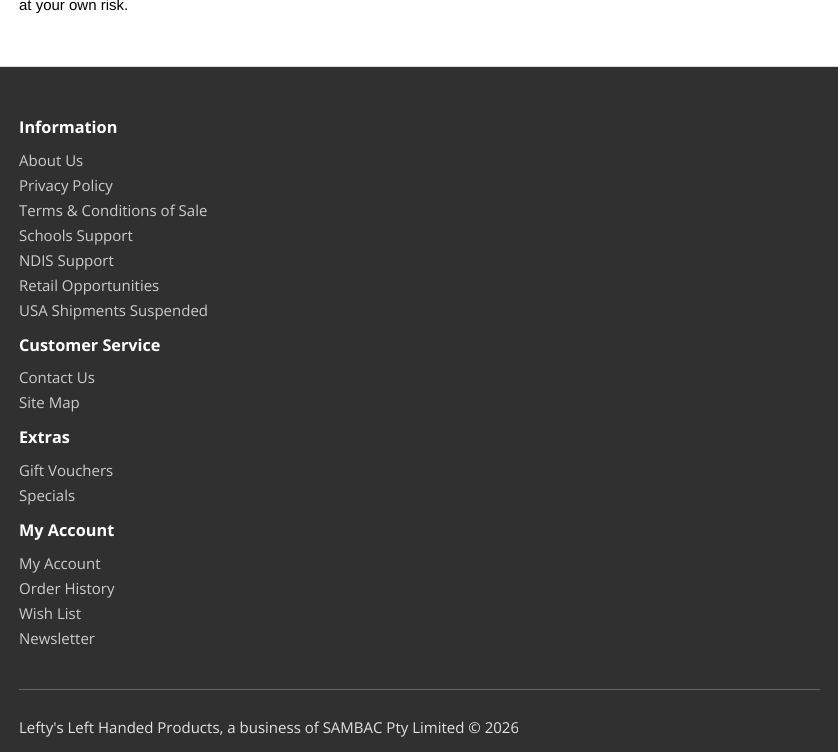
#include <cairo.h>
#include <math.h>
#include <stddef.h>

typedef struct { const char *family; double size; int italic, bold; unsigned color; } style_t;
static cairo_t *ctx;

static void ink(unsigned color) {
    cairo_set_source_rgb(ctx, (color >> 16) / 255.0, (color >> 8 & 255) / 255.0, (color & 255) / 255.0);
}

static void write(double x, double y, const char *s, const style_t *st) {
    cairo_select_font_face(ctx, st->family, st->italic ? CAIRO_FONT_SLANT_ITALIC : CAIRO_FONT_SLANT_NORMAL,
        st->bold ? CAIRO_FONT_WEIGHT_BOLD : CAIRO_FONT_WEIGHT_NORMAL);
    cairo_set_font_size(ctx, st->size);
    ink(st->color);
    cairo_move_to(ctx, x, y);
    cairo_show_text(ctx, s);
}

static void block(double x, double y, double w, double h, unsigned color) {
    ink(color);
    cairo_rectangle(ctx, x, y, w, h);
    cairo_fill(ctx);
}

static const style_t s1 = {"Liberation Sans", 15, 0, 0, 0x000000};
static const style_t s2 = {"Open Sans", 16.25, 0, 1, 0xffffff};
static const style_t s3 = {"Open Sans", 15, 0, 0, 0xcccccc};
static const style_t s4 = {"Open Sans", 15, 0, 0, 0xe2e2e2};

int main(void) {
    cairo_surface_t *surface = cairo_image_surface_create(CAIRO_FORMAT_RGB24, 838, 752);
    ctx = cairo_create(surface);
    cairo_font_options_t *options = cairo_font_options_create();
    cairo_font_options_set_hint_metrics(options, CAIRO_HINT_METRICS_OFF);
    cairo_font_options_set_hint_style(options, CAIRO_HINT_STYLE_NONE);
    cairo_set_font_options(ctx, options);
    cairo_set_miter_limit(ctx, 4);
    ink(0xffffff);
    cairo_paint(ctx);
    write(19, 10, "at your own risk.", &s1);
    block(0, 67, 838, 685, 0x303030);
    block(0, 66, 838, 1, 0xdddddd);
    write(19, 133, "Information", &s2);
    write(19, 166, "About Us", &s3);
    write(19, 191, "Privacy Policy", &s3);
    write(19, 216, "Terms & Conditions of Sale", &s3);
    write(19, 241, "Schools Support", &s3);
    write(19, 266, "NDIS Support", &s3);
    write(19, 291, "Retail Opportunities", &s3);
    write(19, 316, "USA Shipments Suspended", &s3);
    write(19, 351, "Customer Service", &s2);
    write(19, 383, "Contact Us", &s3);
    write(19, 408, "Site Map", &s3);
    write(19, 443, "Extras", &s2);
    write(19, 476, "Gift Vouchers", &s3);
    write(19, 501, "Specials", &s3);
    write(19, 536, "My Account", &s2);
    write(19, 569, "My Account", &s3);
    write(19, 594, "Order History", &s3);
    write(19, 619, "Wish List", &s3);
    write(19, 644, "Newsletter", &s3);
    block(19, 689, 801, 1, 0x666666);
    write(19, 733, "Lefty's Left Handed Products, a business of SAMBAC Pty Limited © 2026", &s4);
    cairo_surface_write_to_png(surface, "screenshot.png");
    cairo_font_options_destroy(options);
    cairo_destroy(ctx);
    cairo_surface_destroy(surface);
    return 0;
}
